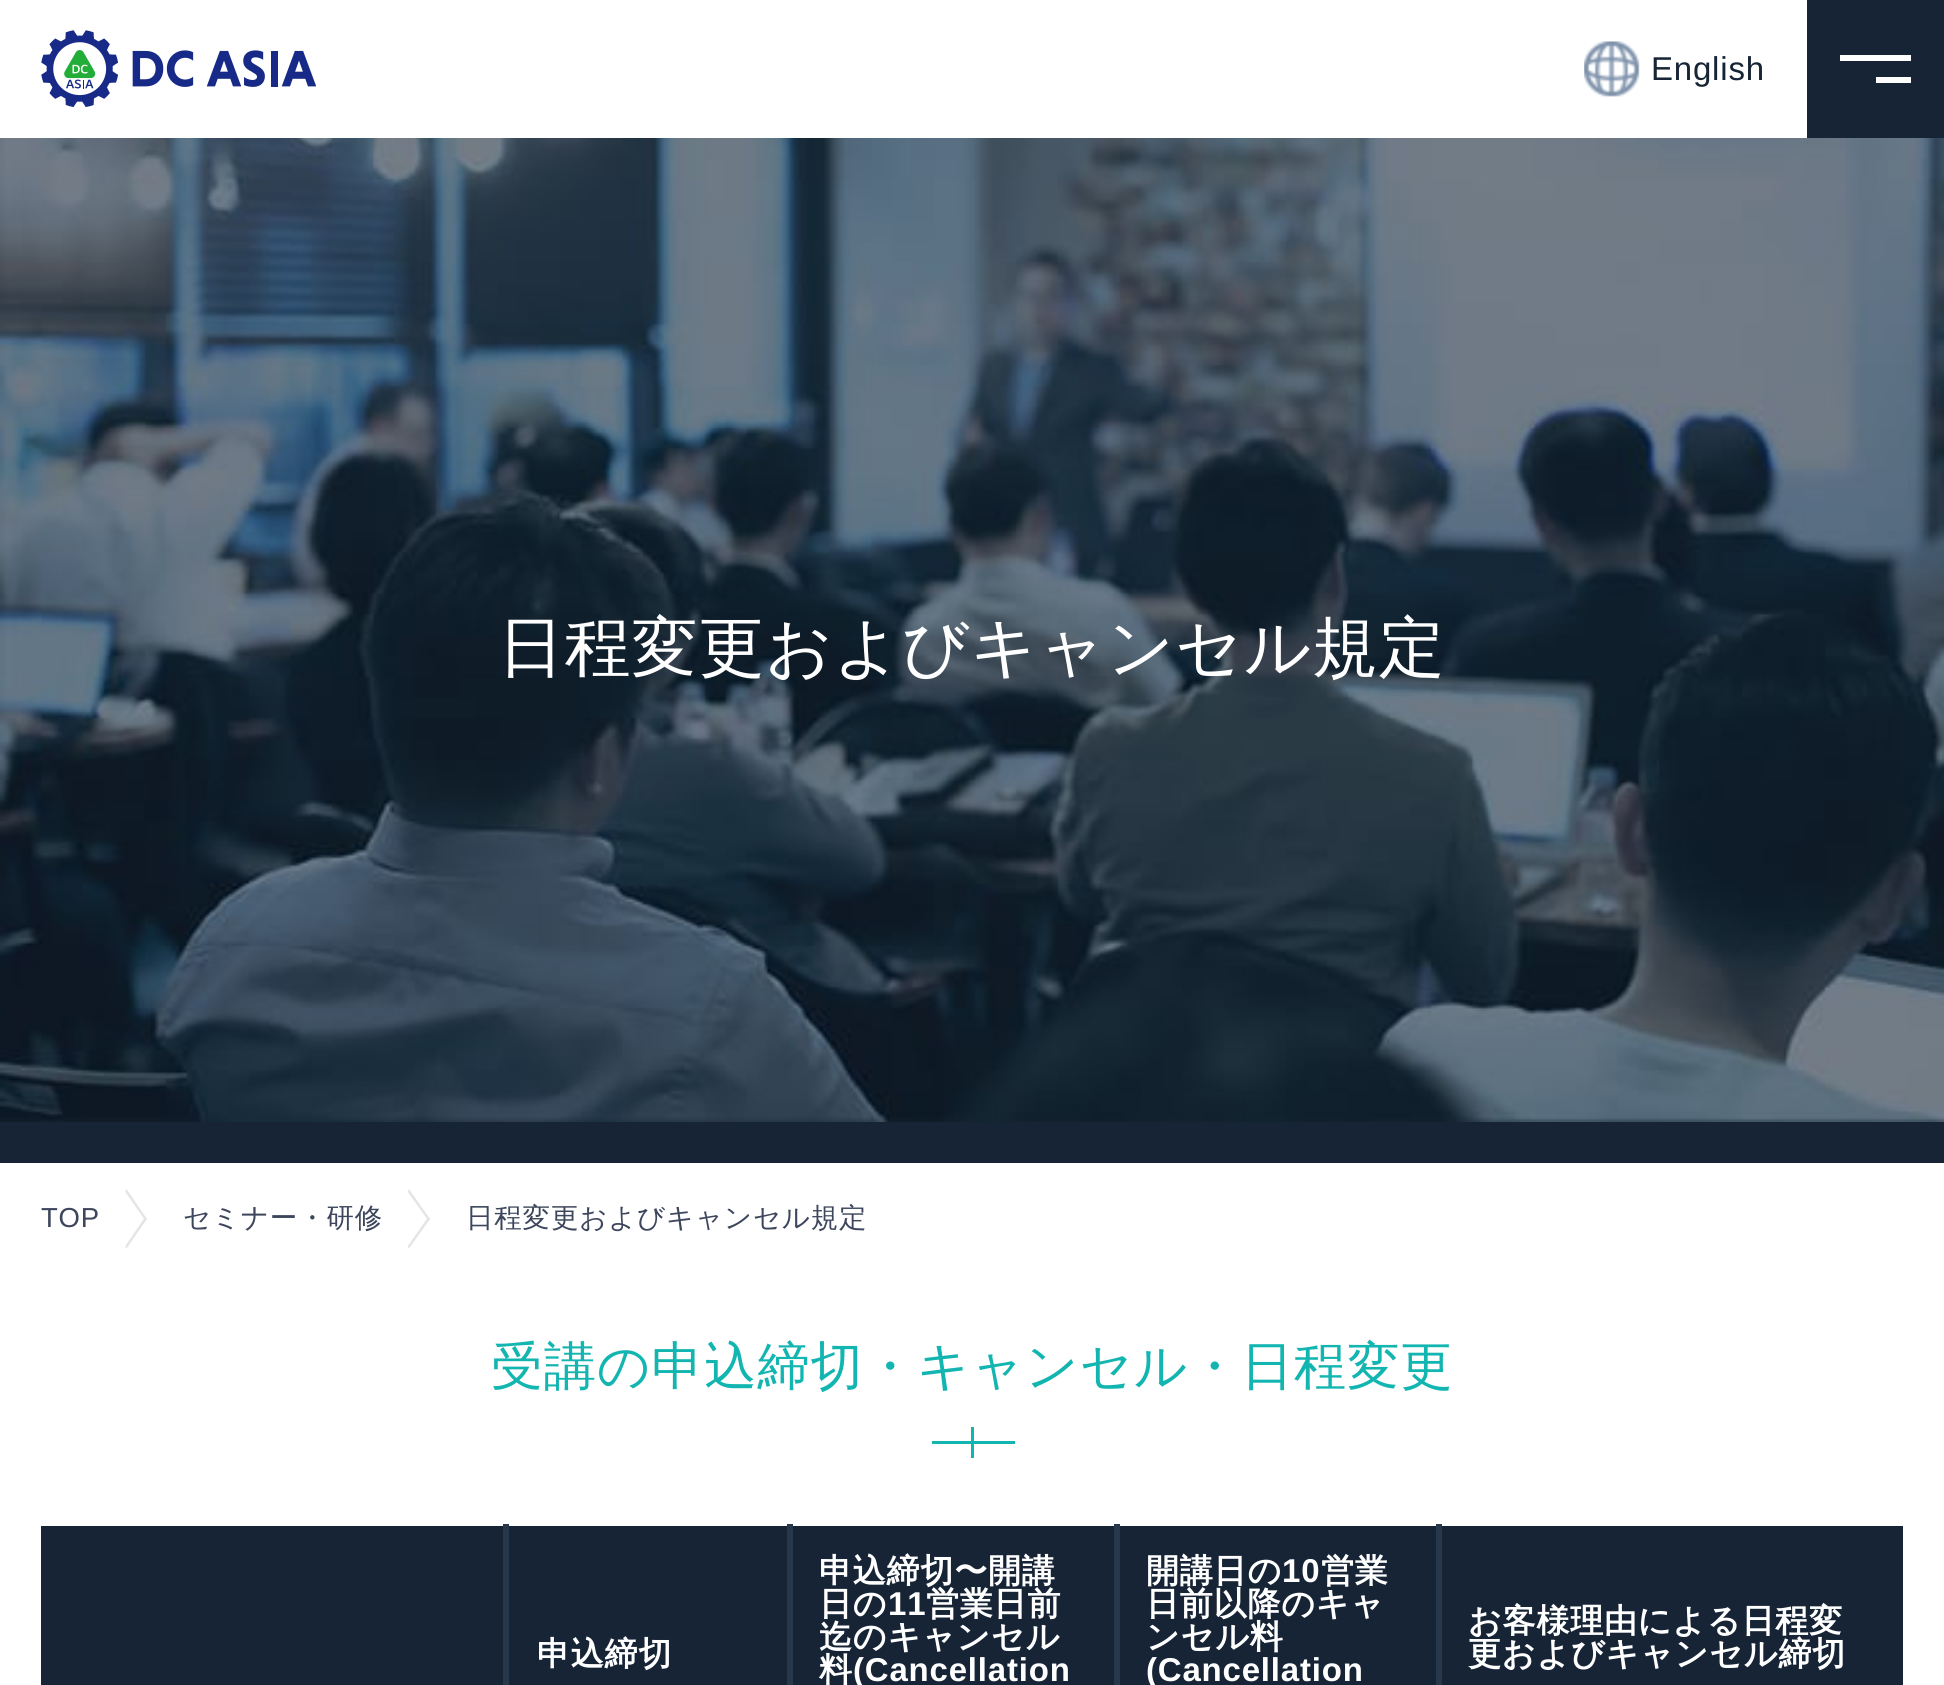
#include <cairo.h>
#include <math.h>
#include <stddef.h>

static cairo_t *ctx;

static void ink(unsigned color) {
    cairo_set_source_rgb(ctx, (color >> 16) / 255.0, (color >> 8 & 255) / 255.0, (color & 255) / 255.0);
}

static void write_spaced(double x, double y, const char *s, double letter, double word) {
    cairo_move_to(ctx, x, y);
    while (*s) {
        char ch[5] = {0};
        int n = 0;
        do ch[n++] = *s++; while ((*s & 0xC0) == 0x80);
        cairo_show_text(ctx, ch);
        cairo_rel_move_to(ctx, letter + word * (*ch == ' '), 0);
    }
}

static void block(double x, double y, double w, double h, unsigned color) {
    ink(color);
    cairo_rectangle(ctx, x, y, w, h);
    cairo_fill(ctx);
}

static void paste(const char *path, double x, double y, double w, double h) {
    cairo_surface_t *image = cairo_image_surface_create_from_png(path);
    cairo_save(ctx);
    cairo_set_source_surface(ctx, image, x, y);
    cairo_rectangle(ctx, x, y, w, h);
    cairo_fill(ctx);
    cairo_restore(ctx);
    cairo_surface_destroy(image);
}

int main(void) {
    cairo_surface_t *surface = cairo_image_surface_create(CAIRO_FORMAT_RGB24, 1944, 1685);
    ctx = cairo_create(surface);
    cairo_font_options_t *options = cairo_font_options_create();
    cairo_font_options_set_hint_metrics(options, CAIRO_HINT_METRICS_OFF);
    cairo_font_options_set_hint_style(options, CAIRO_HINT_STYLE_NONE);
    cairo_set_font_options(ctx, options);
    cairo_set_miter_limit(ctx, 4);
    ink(0xffffff);
    cairo_paint(ctx);
    paste("pic1.png", 41, 30, 275, 77);
    paste("pic2.png", 1584, 41, 56, 56);
    cairo_select_font_face(ctx, "Liberation Sans", CAIRO_FONT_SLANT_NORMAL, CAIRO_FONT_WEIGHT_NORMAL);
    cairo_set_font_size(ctx, 33);
    ink(0x162436);
    write_spaced(1651, 80, "English", 0.8, 0);
    block(1807, 0, 137, 138, 0x162436);
    block(1840, 55, 71, 6, 0xffffff);
    block(1876, 77, 35, 6, 0xffffff);
    paste("pic3.png", 0, 138, 1944, 984);
    cairo_select_font_face(ctx, "WenQuanYi Zen Hei Medium", CAIRO_FONT_SLANT_NORMAL, CAIRO_FONT_WEIGHT_NORMAL);
    cairo_set_font_size(ctx, 66);
    write_spaced(498, 670, "日程変更およびキャンセル規定", 0.8, 0);
    block(0, 1122, 1944, 41, 0x162436);
    cairo_select_font_face(ctx, "Liberation Sans", CAIRO_FONT_SLANT_NORMAL, CAIRO_FONT_WEIGHT_NORMAL);
    cairo_set_font_size(ctx, 27.5);
    ink(0x3d465c);
    write_spaced(41, 1227, "TOP", 0.8, 0);
    ink(0xe5e5e5);
    cairo_new_path(ctx);
    cairo_move_to(ctx, 125, 1191.5);
    cairo_line_to(ctx, 126.5, 1189);
    cairo_line_to(ctx, 147, 1219);
    cairo_line_to(ctx, 145.5, 1221);
    cairo_close_path(ctx);
    cairo_fill(ctx);
    cairo_new_path(ctx);
    cairo_move_to(ctx, 125, 1246.5);
    cairo_line_to(ctx, 145.5, 1216.5);
    cairo_line_to(ctx, 147, 1219);
    cairo_line_to(ctx, 126.5, 1248.5);
    cairo_close_path(ctx);
    cairo_fill(ctx);
    cairo_select_font_face(ctx, "WenQuanYi Zen Hei Medium", CAIRO_FONT_SLANT_NORMAL, CAIRO_FONT_WEIGHT_NORMAL);
    ink(0x3d465c);
    write_spaced(183, 1227, "セミナー・研修", 0.8, 0);
    ink(0xe5e5e5);
    cairo_new_path(ctx);
    cairo_move_to(ctx, 407.5, 1191.5);
    cairo_line_to(ctx, 409, 1189);
    cairo_line_to(ctx, 430, 1219);
    cairo_line_to(ctx, 428.5, 1221);
    cairo_close_path(ctx);
    cairo_fill(ctx);
    cairo_new_path(ctx);
    cairo_move_to(ctx, 407.5, 1246.5);
    cairo_line_to(ctx, 428.5, 1216.5);
    cairo_line_to(ctx, 430, 1219);
    cairo_line_to(ctx, 409, 1248.5);
    cairo_close_path(ctx);
    cairo_fill(ctx);
    ink(0x3d465c);
    write_spaced(466, 1227, "日程変更およびキャンセル規定", 0.8, 0);
    cairo_set_font_size(ctx, 52.25);
    ink(0x13b5b1);
    write_spaced(491, 1384, "受講の申込締切・キャンセル・日程変更", 0.8, 0);
    block(932, 1441, 83, 3, 0x13b5b1);
    block(971, 1427, 3, 31, 0x13b5b1);
    block(41, 1526, 462, 159, 0x162436);
    block(503, 1524, 6, 161, 0x27384d);
    block(509, 1526, 278, 159, 0x162436);
    block(787, 1524, 6, 161, 0x27384d);
    cairo_select_font_face(ctx, "WenQuanYi Zen Hei", CAIRO_FONT_SLANT_NORMAL, CAIRO_FONT_WEIGHT_BOLD);
    cairo_set_font_size(ctx, 33);
    ink(0xffffff);
    write_spaced(537, 1665, "申込締切", 0.8, 0);
    block(793, 1526, 321, 159, 0x162436);
    block(1114, 1524, 6, 161, 0x27384d);
    ink(0xffffff);
    write_spaced(819, 1582, "申込締切〜開講", 0.8, 0);
    write_spaced(819, 1615, "日の", 0.8, 0);
    cairo_select_font_face(ctx, "Liberation Sans", CAIRO_FONT_SLANT_NORMAL, CAIRO_FONT_WEIGHT_BOLD);
    write_spaced(888, 1615, "11", 0.8, 0);
    cairo_select_font_face(ctx, "WenQuanYi Zen Hei", CAIRO_FONT_SLANT_NORMAL, CAIRO_FONT_WEIGHT_BOLD);
    write_spaced(926, 1615, "営業日前", 0.8, 0);
    write_spaced(819, 1648, "迄のキャンセル", 0.8, 0);
    write_spaced(819, 1681, "料", 0.8, 0);
    cairo_select_font_face(ctx, "Liberation Sans", CAIRO_FONT_SLANT_NORMAL, CAIRO_FONT_WEIGHT_BOLD);
    write_spaced(853, 1681, "(Cancellation", 0.8, 0);
    block(1120, 1526, 316, 159, 0x162436);
    block(1436, 1524, 6, 161, 0x27384d);
    cairo_select_font_face(ctx, "WenQuanYi Zen Hei", CAIRO_FONT_SLANT_NORMAL, CAIRO_FONT_WEIGHT_BOLD);
    ink(0xffffff);
    write_spaced(1146, 1582, "開講日の", 0.8, 0);
    cairo_select_font_face(ctx, "Liberation Sans", CAIRO_FONT_SLANT_NORMAL, CAIRO_FONT_WEIGHT_BOLD);
    write_spaced(1282, 1582, "10", 0.8, 0);
    cairo_select_font_face(ctx, "WenQuanYi Zen Hei", CAIRO_FONT_SLANT_NORMAL, CAIRO_FONT_WEIGHT_BOLD);
    write_spaced(1321, 1582, "営業", 0.8, 0);
    write_spaced(1146, 1615, "日前以降のキャ", 0.8, 0);
    write_spaced(1146, 1648, "ンセル料", 0.8, 0);
    cairo_select_font_face(ctx, "Liberation Sans", CAIRO_FONT_SLANT_NORMAL, CAIRO_FONT_WEIGHT_BOLD);
    write_spaced(1146, 1681, "(Cancellation", 0.8, 0);
    block(1442, 1526, 461, 159, 0x162436);
    cairo_select_font_face(ctx, "WenQuanYi Zen Hei", CAIRO_FONT_SLANT_NORMAL, CAIRO_FONT_WEIGHT_BOLD);
    ink(0xffffff);
    write_spaced(1468, 1632, "お客様理由による日程変", 0.8, 0);
    write_spaced(1468, 1665, "更およびキャンセル締切", 0.8, 0);
    cairo_surface_write_to_png(surface, "screenshot.png");
    cairo_font_options_destroy(options);
    cairo_destroy(ctx);
    cairo_surface_destroy(surface);
    return 0;
}
